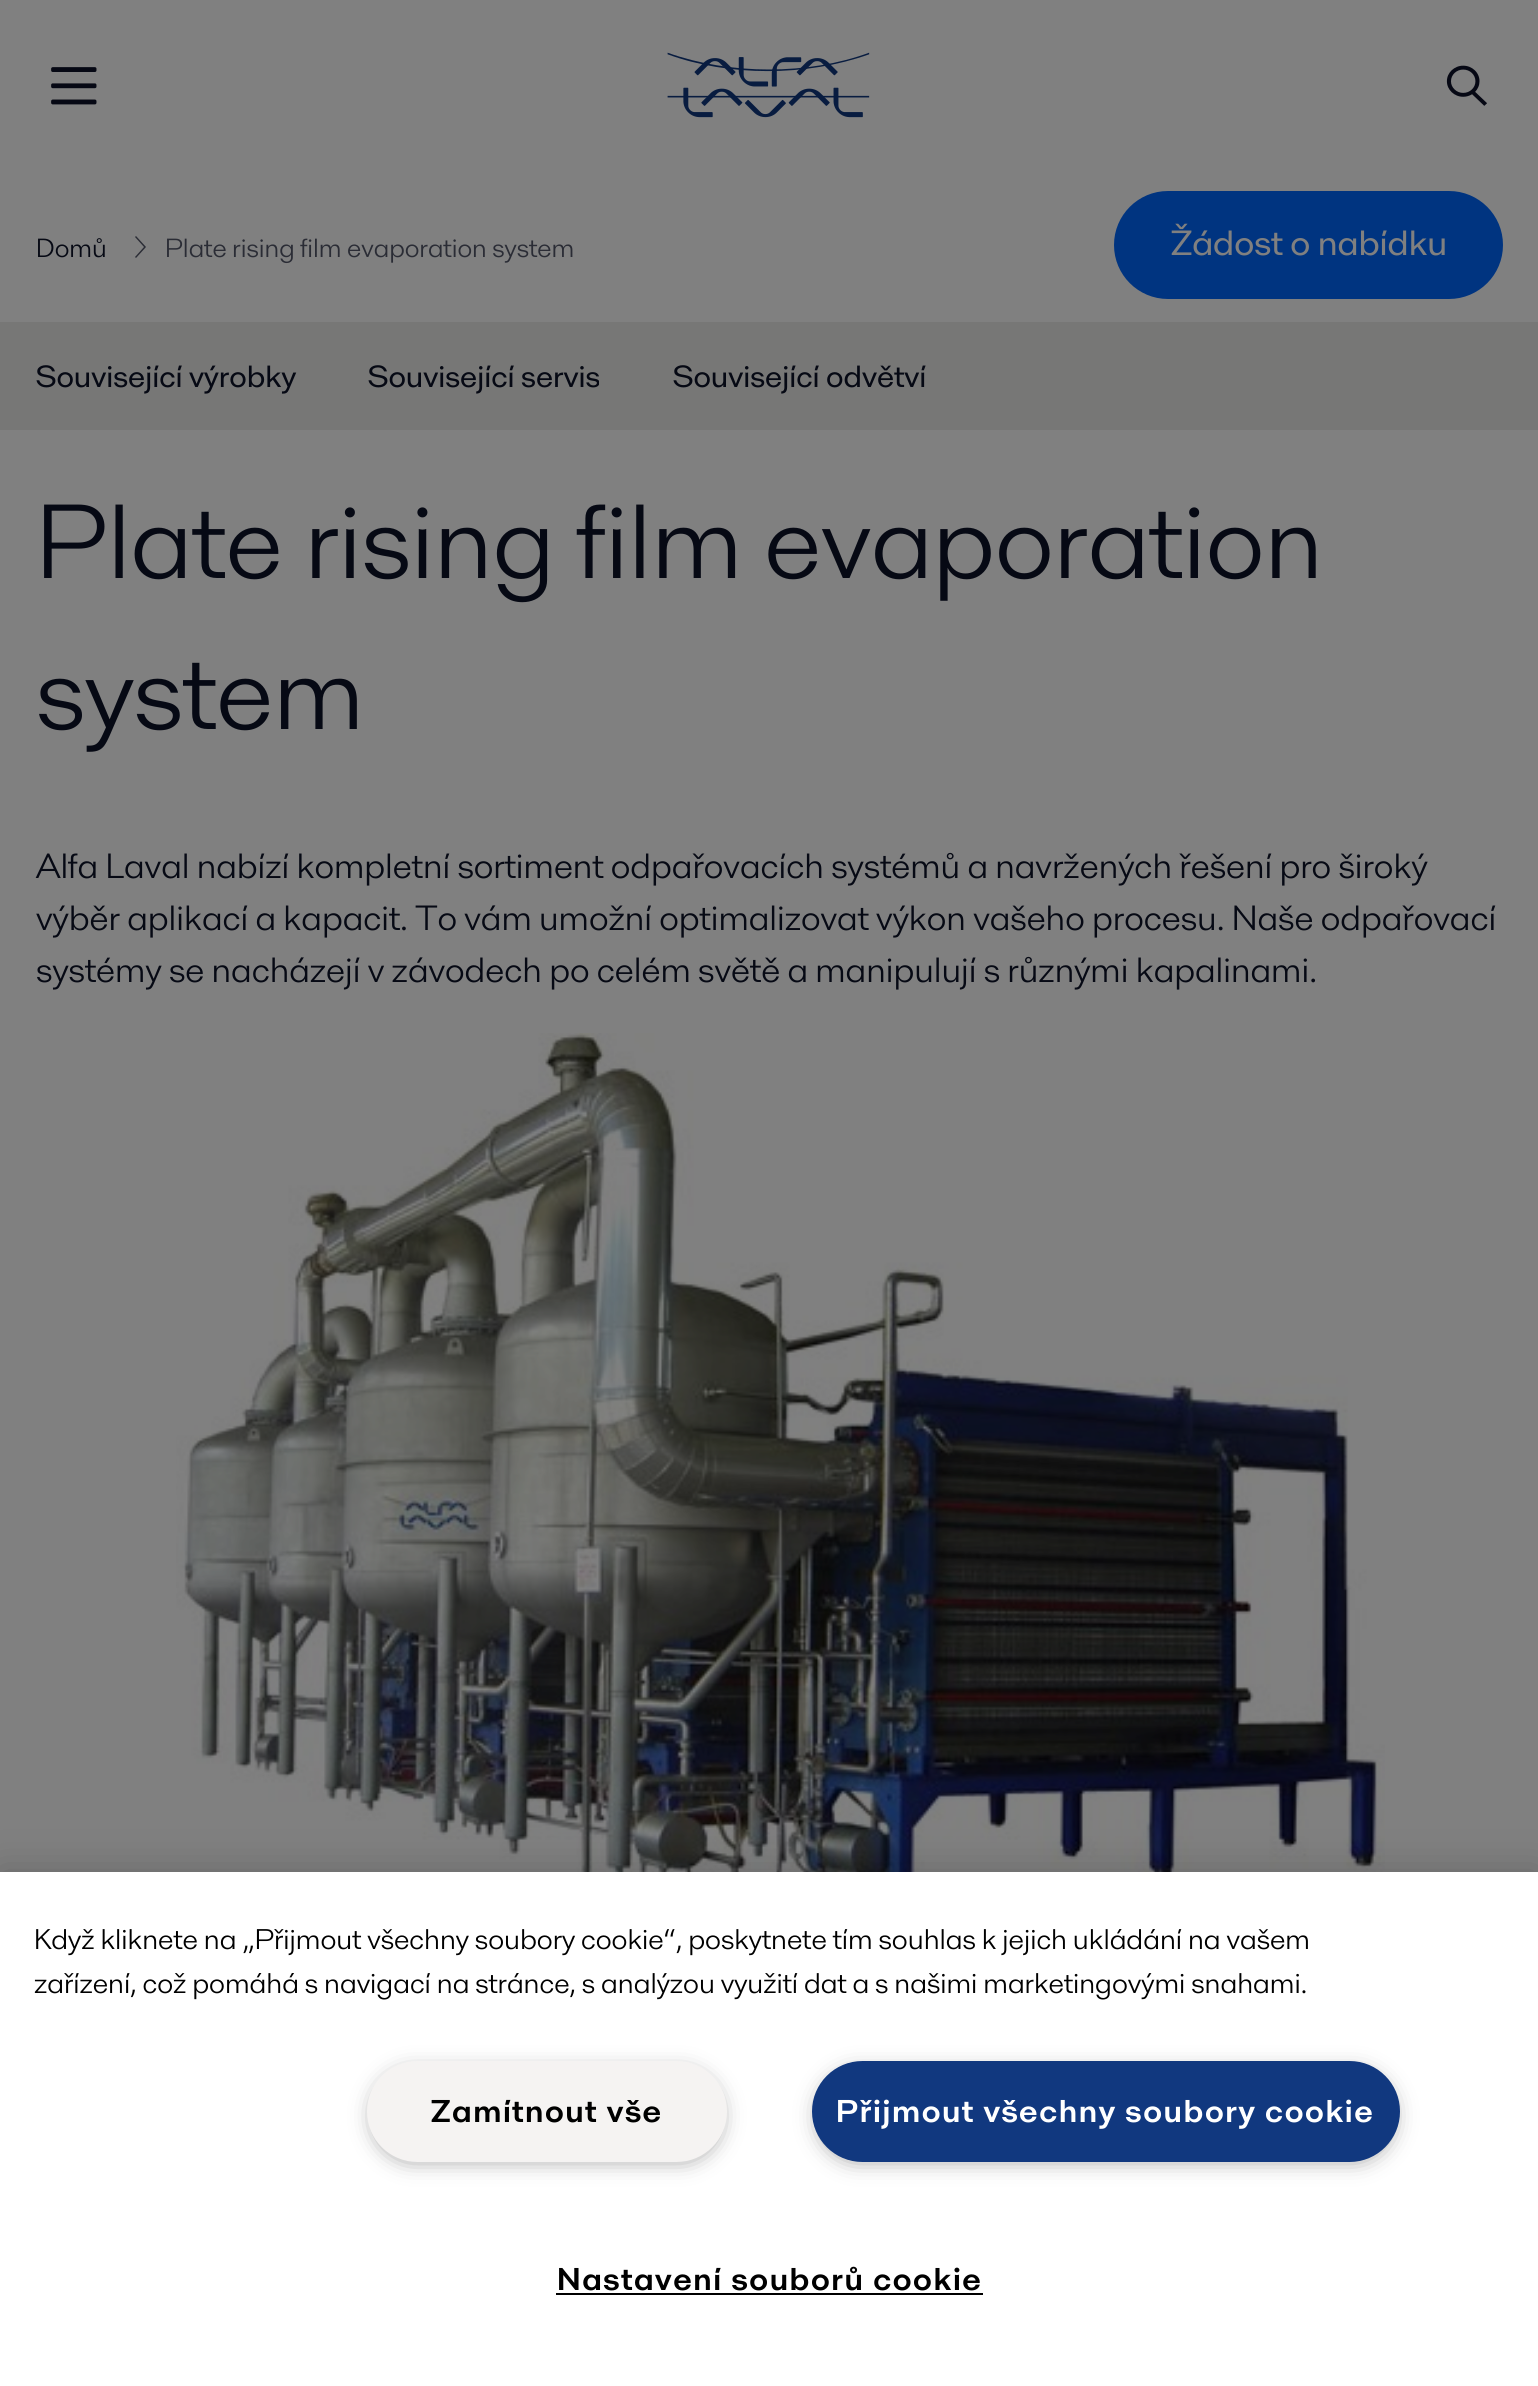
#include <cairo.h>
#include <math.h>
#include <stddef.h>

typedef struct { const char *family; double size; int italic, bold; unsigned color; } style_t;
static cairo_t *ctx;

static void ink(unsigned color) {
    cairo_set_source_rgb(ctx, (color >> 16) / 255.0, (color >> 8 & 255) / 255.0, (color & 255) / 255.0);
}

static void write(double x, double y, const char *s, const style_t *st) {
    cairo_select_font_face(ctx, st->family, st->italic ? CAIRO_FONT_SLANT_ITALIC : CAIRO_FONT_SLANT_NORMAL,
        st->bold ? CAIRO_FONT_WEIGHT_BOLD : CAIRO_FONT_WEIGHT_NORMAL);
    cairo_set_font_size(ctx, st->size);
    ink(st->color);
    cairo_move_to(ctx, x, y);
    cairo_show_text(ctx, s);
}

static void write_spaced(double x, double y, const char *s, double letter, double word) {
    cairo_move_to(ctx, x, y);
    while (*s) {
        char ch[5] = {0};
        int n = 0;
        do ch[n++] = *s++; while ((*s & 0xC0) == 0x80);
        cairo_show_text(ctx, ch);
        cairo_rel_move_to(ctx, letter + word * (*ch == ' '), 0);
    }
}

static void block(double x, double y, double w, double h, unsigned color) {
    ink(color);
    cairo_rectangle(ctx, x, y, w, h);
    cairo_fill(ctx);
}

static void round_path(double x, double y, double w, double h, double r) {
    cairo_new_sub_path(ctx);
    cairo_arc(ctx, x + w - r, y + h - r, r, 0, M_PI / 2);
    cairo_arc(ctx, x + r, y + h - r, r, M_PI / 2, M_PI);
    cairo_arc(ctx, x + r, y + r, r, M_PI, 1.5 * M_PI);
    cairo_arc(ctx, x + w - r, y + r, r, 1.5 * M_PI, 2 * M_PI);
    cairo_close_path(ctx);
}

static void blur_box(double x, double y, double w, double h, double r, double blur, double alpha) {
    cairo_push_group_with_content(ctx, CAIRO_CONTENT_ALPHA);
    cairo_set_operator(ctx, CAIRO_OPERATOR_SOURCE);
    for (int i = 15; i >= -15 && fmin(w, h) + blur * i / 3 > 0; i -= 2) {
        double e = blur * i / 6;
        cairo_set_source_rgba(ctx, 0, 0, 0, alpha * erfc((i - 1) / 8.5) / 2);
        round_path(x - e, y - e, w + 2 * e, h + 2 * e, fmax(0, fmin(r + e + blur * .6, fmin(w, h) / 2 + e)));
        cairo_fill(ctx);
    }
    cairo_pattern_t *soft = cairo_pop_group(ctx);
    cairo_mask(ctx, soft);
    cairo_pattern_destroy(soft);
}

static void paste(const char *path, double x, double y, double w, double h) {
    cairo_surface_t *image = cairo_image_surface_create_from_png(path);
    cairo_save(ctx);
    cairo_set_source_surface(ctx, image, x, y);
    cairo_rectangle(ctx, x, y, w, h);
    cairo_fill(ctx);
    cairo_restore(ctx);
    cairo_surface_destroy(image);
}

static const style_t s1 = {"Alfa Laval", 27, 0, 0, 0x060914};
static const style_t s2 = {"Alfa Laval", 27, 0, 0, 0x2a2c35};
static const style_t s3 = {"Alfa Laval Medium", 36, 0, 0, 0x808080};
static const style_t s4 = {"Alfa Laval Medium", 31.5, 0, 0, 0x060914};
static const style_t s5 = {"Alfa Laval", 108, 0, 0, 0x060914};
static const style_t s6 = {"Alfa Laval", 36, 0, 0, 0x060914};
static const style_t s7 = {"Alfa Laval", 29.25, 0, 0, 0x000000};

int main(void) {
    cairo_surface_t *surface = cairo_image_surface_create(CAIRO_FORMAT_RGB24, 1538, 2386);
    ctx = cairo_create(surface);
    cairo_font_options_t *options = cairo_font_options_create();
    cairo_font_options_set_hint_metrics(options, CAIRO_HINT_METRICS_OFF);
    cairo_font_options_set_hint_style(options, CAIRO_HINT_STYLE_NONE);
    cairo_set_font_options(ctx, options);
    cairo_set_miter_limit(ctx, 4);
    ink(0x808080);
    cairo_paint(ctx);
    paste("pic1.png", 51, 67, 46, 38);
    paste("pic2.png", 667, 52, 203, 66);
    paste("pic3.png", 1446, 65, 41, 41);
    write(36, 257, "Domů", &s1);
    ink(0x2a2c35);
    cairo_new_path(ctx);
    cairo_move_to(ctx, 144, 247);
    cairo_line_to(ctx, 135, 237);
    cairo_line_to(ctx, 136, 236);
    cairo_line_to(ctx, 146, 247);
    cairo_line_to(ctx, 136, 258);
    cairo_line_to(ctx, 135, 257);
    cairo_close_path(ctx);
    cairo_fill(ctx);
    write(165, 257, "Plate rising film evaporation system", &s2);
    ink(0x003480);
    round_path(1115, 192, 387, 106, 53);
    cairo_fill_preserve(ctx);
    cairo_stroke(ctx);
    write(1171, 255, "Žádost o nabídku", &s3);
    block(0, 322, 1538, 108, 0x777776);
    write(36, 387, "Související výrobky", &s4);
    write(368, 387, "Související servis", &s4);
    write(673, 387, "Související odvětví", &s4);
    write(36, 578, "Plate rising film evaporation", &s5);
    write(36, 729, "system", &s5);
    write(36, 878, "Alfa Laval nabízí kompletní sortiment odpařovacích systémů a navržených řešení pro široký", &s6);
    write(36, 930, "výběr aplikací a kapacit. To vám umožní optimalizovat výkon vašeho procesu. Naše odpařovací", &s6);
    write(36, 982, "systémy se nacházejí v závodech po celém světě a manipulují s různými kapalinami.", &s6);
    paste("pic4.png", 176, 1033, 1209, 839);
    ink(0x000000);
    blur_box(0, 1872, 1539, 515, 0, 20, 0.2);
    block(0, 1872, 1538, 514, 0xffffff);
    write(34, 1949, "Když kliknete na „Přijmout všechny soubory cookie“, poskytnete tím souhlas k jejich ukládání na vašem", &s7);
    write(34, 1993, "zařízení, což pomáhá s navigací na stránce, s analýzou využití dat a s našimi marketingovými snahami.", &s7);
    ink(0x999999);
    blur_box(374, 2072, 346, 88, 44, 11, 1);
    ink(0xf5f3f2);
    round_path(368, 2062, 358, 99, 49.5);
    cairo_fill_preserve(ctx);
    cairo_stroke(ctx);
    cairo_select_font_face(ctx, "Alfa Laval", CAIRO_FONT_SLANT_NORMAL, CAIRO_FONT_WEIGHT_BOLD);
    cairo_set_font_size(ctx, 32.4);
    ink(0x000000);
    write_spaced(431, 2122, "Zamítnout vše", 1.6, 0);
    ink(0x999999);
    blur_box(819, 2072, 574, 88, 44, 11, 1);
    ink(0x11387f);
    round_path(813, 2062, 586, 99, 49.5);
    cairo_fill_preserve(ctx);
    cairo_stroke(ctx);
    ink(0xffffff);
    write_spaced(836, 2122, "Přijmout všechny soubory cookie", 1.6, 0);
    ink(0x000000);
    write_spaced(557, 2290, "Nastavení souborů cookie", 1.6, 0);
    block(556, 2293, 427, 2, 0x000000);
    cairo_surface_write_to_png(surface, "screenshot.png");
    cairo_font_options_destroy(options);
    cairo_destroy(ctx);
    cairo_surface_destroy(surface);
    return 0;
}
